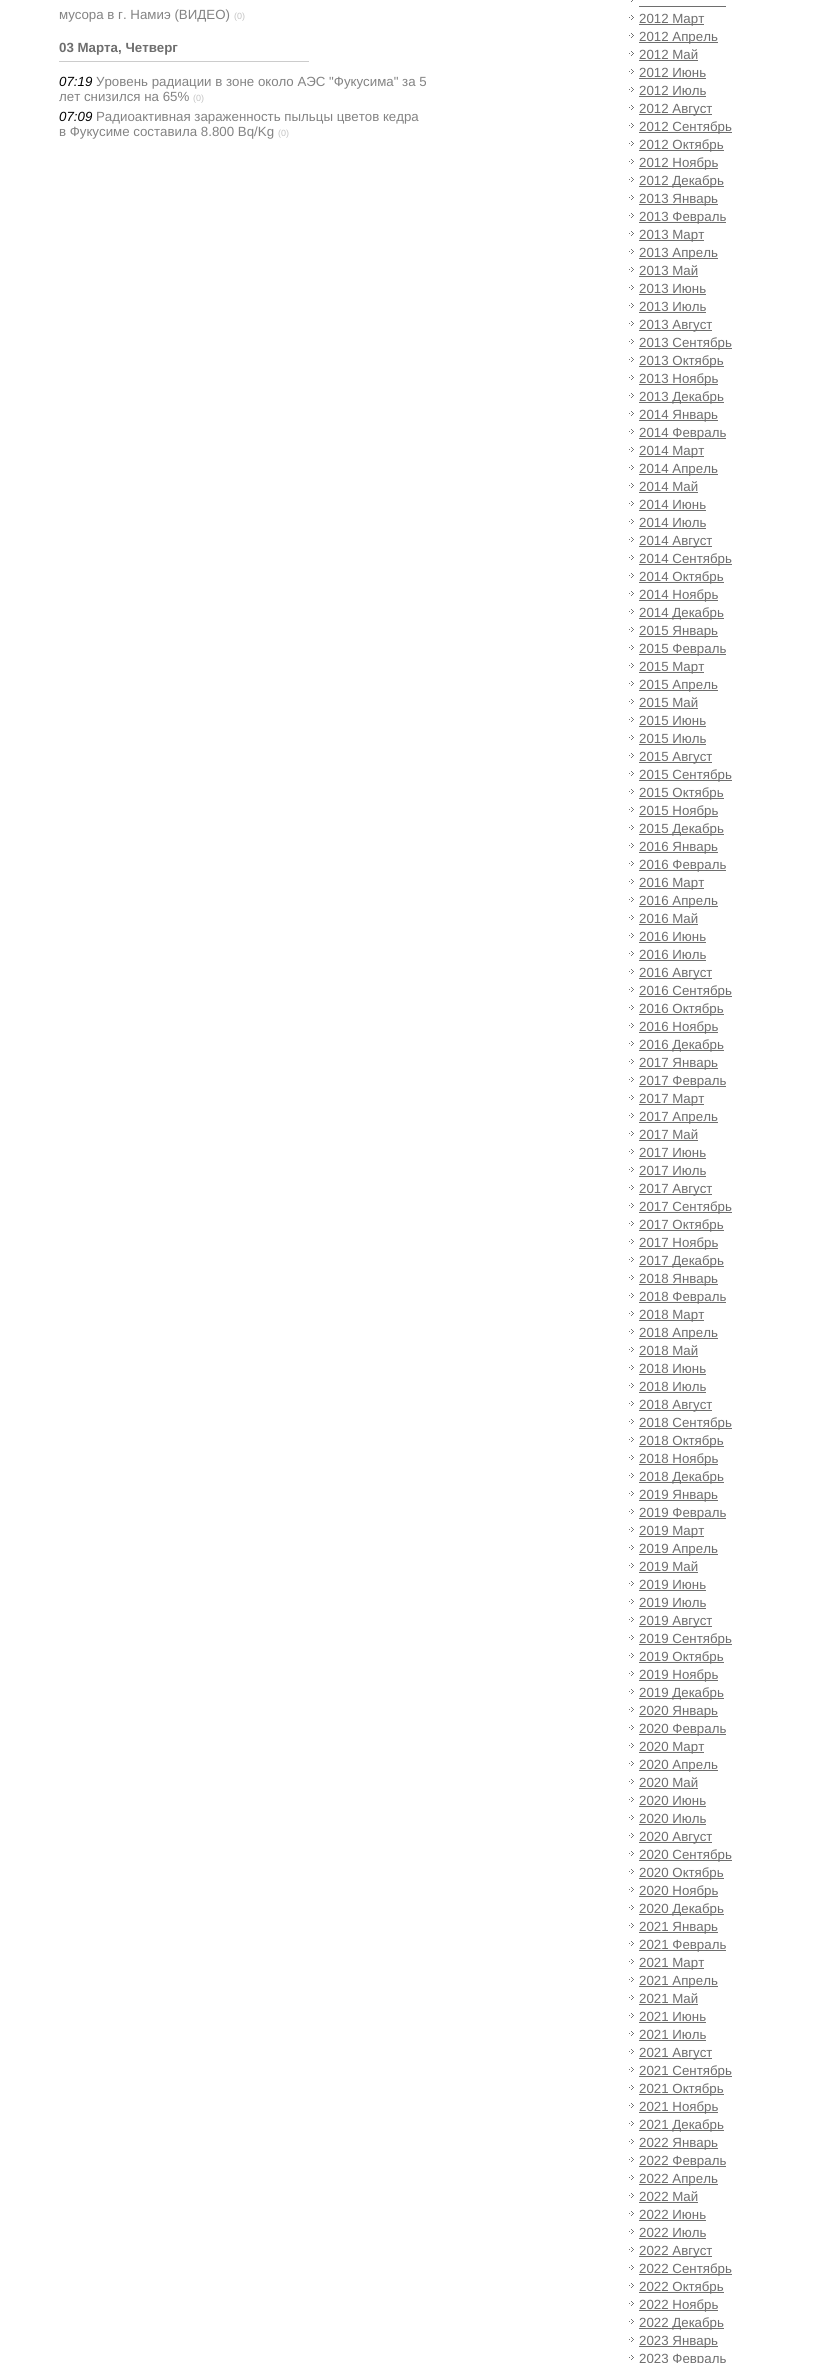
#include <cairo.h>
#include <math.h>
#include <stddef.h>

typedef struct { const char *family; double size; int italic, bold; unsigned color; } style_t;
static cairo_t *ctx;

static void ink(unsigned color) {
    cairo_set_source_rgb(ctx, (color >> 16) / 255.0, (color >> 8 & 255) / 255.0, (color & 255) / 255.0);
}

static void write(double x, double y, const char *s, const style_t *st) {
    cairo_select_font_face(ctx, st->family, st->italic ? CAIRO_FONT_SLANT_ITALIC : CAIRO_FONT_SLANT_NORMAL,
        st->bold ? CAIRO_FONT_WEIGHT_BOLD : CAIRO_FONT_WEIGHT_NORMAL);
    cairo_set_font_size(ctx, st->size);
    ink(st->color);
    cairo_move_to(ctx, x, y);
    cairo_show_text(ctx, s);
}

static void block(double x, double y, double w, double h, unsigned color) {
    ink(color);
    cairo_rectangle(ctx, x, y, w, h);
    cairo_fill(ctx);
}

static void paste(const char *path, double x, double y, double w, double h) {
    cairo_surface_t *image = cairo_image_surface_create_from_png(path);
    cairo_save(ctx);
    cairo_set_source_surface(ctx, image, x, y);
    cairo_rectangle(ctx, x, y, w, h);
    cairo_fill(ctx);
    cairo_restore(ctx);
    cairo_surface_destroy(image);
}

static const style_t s1 = {"Liberation Sans", 13.3, 0, 0, 0x838383};
static const style_t s2 = {"Liberation Sans", 9, 0, 0, 0xc3c3c3};
static const style_t s3 = {"Liberation Sans", 13.3, 0, 1, 0x6e6e6e};
static const style_t s4 = {"Liberation Sans", 13.3, 1, 0, 0x000000};
static const style_t s5 = {"Liberation Sans", 13.3, 0, 0, 0x6e6e6e};

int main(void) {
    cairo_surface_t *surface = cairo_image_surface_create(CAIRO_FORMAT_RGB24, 824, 2363);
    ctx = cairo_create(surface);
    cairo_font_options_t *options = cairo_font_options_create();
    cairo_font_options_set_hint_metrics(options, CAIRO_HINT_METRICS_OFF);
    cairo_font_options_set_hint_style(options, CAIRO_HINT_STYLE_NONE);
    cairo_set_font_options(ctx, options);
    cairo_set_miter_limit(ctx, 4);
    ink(0xffffff);
    cairo_paint(ctx);
    write(59, 19, "мусора в г. Намиэ (ВИДЕО)", &s1);
    write(234, 19, "(0)", &s2);
    write(59, 52, "03 Марта, Четверг", &s3);
    block(59, 61, 250, 1, 0xcccccc);
    write(59, 86, "07:19", &s4);
    write(96, 86, "Уровень радиации в зоне около АЭС \"Фукусима\" за 5", &s1);
    write(59, 101, "лет снизился на 65%", &s1);
    write(193, 101, "(0)", &s2);
    write(59, 121, "07:09", &s4);
    write(96, 121, "Радиоактивная зараженность пыльцы цветов кедра", &s1);
    write(59, 136, "в Фукусиме составила 8.800 Bq/Kg", &s1);
    write(278, 136, "(0)", &s2);
    paste("pic1.png", 631, 0, 2, 2);
    block(639, 6, 87, 1, 0x6e6e6e);
    paste("pic2.png", 629, 15, 5, 5);
    block(639, 24, 65, 1, 0x6e6e6e);
    write(639, 23, "2012 Март", &s5);
    paste("pic2.png", 629, 33, 5, 5);
    block(639, 42, 79, 1, 0x6e6e6e);
    write(639, 41, "2012 Апрель", &s5);
    paste("pic2.png", 629, 51, 5, 5);
    write(639, 59, "2012 Май", &s5);
    block(639, 60, 59, 1, 0x6e6e6e);
    paste("pic2.png", 629, 69, 5, 5);
    write(639, 77, "2012 Июнь", &s5);
    block(639, 78, 67, 1, 0x6e6e6e);
    paste("pic2.png", 629, 87, 5, 5);
    write(639, 95, "2012 Июль", &s5);
    block(639, 96, 67, 1, 0x6e6e6e);
    paste("pic2.png", 629, 105, 5, 5);
    block(639, 114, 73, 1, 0x6e6e6e);
    write(639, 113, "2012 Август", &s5);
    paste("pic2.png", 629, 123, 5, 5);
    block(639, 132, 93, 1, 0x6e6e6e);
    write(639, 131, "2012 Сентябрь", &s5);
    paste("pic2.png", 629, 141, 5, 5);
    block(639, 150, 85, 1, 0x6e6e6e);
    write(639, 149, "2012 Октябрь", &s5);
    paste("pic2.png", 629, 159, 5, 5);
    block(639, 168, 79, 1, 0x6e6e6e);
    write(639, 167, "2012 Ноябрь", &s5);
    paste("pic2.png", 629, 177, 5, 5);
    block(639, 186, 85, 1, 0x6e6e6e);
    write(639, 185, "2012 Декабрь", &s5);
    paste("pic2.png", 629, 195, 5, 5);
    block(639, 204, 79, 1, 0x6e6e6e);
    write(639, 203, "2013 Январь", &s5);
    paste("pic2.png", 629, 213, 5, 5);
    block(639, 222, 87, 1, 0x6e6e6e);
    write(639, 221, "2013 Февраль", &s5);
    paste("pic2.png", 629, 231, 5, 5);
    block(639, 240, 65, 1, 0x6e6e6e);
    write(639, 239, "2013 Март", &s5);
    paste("pic2.png", 629, 249, 5, 5);
    block(639, 258, 79, 1, 0x6e6e6e);
    write(639, 257, "2013 Апрель", &s5);
    paste("pic2.png", 629, 267, 5, 5);
    write(639, 275, "2013 Май", &s5);
    block(639, 276, 59, 1, 0x6e6e6e);
    paste("pic2.png", 629, 285, 5, 5);
    write(639, 293, "2013 Июнь", &s5);
    block(639, 294, 67, 1, 0x6e6e6e);
    paste("pic2.png", 629, 303, 5, 5);
    write(639, 311, "2013 Июль", &s5);
    block(639, 312, 67, 1, 0x6e6e6e);
    paste("pic2.png", 629, 321, 5, 5);
    block(639, 330, 73, 1, 0x6e6e6e);
    write(639, 329, "2013 Август", &s5);
    paste("pic2.png", 629, 339, 5, 5);
    block(639, 348, 93, 1, 0x6e6e6e);
    write(639, 347, "2013 Сентябрь", &s5);
    paste("pic2.png", 629, 357, 5, 5);
    block(639, 366, 85, 1, 0x6e6e6e);
    write(639, 365, "2013 Октябрь", &s5);
    paste("pic2.png", 629, 375, 5, 5);
    block(639, 384, 79, 1, 0x6e6e6e);
    write(639, 383, "2013 Ноябрь", &s5);
    paste("pic2.png", 629, 393, 5, 5);
    block(639, 402, 85, 1, 0x6e6e6e);
    write(639, 401, "2013 Декабрь", &s5);
    paste("pic2.png", 629, 411, 5, 5);
    block(639, 420, 79, 1, 0x6e6e6e);
    write(639, 419, "2014 Январь", &s5);
    paste("pic2.png", 629, 429, 5, 5);
    block(639, 438, 87, 1, 0x6e6e6e);
    write(639, 437, "2014 Февраль", &s5);
    paste("pic2.png", 629, 447, 5, 5);
    block(639, 456, 65, 1, 0x6e6e6e);
    write(639, 455, "2014 Март", &s5);
    paste("pic2.png", 629, 465, 5, 5);
    block(639, 474, 79, 1, 0x6e6e6e);
    write(639, 473, "2014 Апрель", &s5);
    paste("pic2.png", 629, 483, 5, 5);
    write(639, 491, "2014 Май", &s5);
    block(639, 492, 59, 1, 0x6e6e6e);
    paste("pic2.png", 629, 501, 5, 5);
    write(639, 509, "2014 Июнь", &s5);
    block(639, 510, 67, 1, 0x6e6e6e);
    paste("pic2.png", 629, 519, 5, 5);
    write(639, 527, "2014 Июль", &s5);
    block(639, 528, 67, 1, 0x6e6e6e);
    paste("pic2.png", 629, 537, 5, 5);
    block(639, 546, 73, 1, 0x6e6e6e);
    write(639, 545, "2014 Август", &s5);
    paste("pic2.png", 629, 555, 5, 5);
    block(639, 564, 93, 1, 0x6e6e6e);
    write(639, 563, "2014 Сентябрь", &s5);
    paste("pic2.png", 629, 573, 5, 5);
    block(639, 582, 85, 1, 0x6e6e6e);
    write(639, 581, "2014 Октябрь", &s5);
    paste("pic2.png", 629, 591, 5, 5);
    block(639, 600, 79, 1, 0x6e6e6e);
    write(639, 599, "2014 Ноябрь", &s5);
    paste("pic2.png", 629, 609, 5, 5);
    block(639, 618, 85, 1, 0x6e6e6e);
    write(639, 617, "2014 Декабрь", &s5);
    paste("pic2.png", 629, 627, 5, 5);
    block(639, 636, 79, 1, 0x6e6e6e);
    write(639, 635, "2015 Январь", &s5);
    paste("pic2.png", 629, 645, 5, 5);
    block(639, 654, 87, 1, 0x6e6e6e);
    write(639, 653, "2015 Февраль", &s5);
    paste("pic2.png", 629, 663, 5, 5);
    block(639, 672, 65, 1, 0x6e6e6e);
    write(639, 671, "2015 Март", &s5);
    paste("pic2.png", 629, 681, 5, 5);
    block(639, 690, 79, 1, 0x6e6e6e);
    write(639, 689, "2015 Апрель", &s5);
    paste("pic2.png", 629, 699, 5, 5);
    write(639, 707, "2015 Май", &s5);
    block(639, 708, 59, 1, 0x6e6e6e);
    paste("pic2.png", 629, 717, 5, 5);
    write(639, 725, "2015 Июнь", &s5);
    block(639, 726, 67, 1, 0x6e6e6e);
    paste("pic2.png", 629, 735, 5, 5);
    write(639, 743, "2015 Июль", &s5);
    block(639, 744, 67, 1, 0x6e6e6e);
    paste("pic2.png", 629, 753, 5, 5);
    block(639, 762, 73, 1, 0x6e6e6e);
    write(639, 761, "2015 Август", &s5);
    paste("pic2.png", 629, 771, 5, 5);
    block(639, 780, 93, 1, 0x6e6e6e);
    write(639, 779, "2015 Сентябрь", &s5);
    paste("pic2.png", 629, 789, 5, 5);
    block(639, 798, 85, 1, 0x6e6e6e);
    write(639, 797, "2015 Октябрь", &s5);
    paste("pic2.png", 629, 807, 5, 5);
    block(639, 816, 79, 1, 0x6e6e6e);
    write(639, 815, "2015 Ноябрь", &s5);
    paste("pic2.png", 629, 825, 5, 5);
    block(639, 834, 85, 1, 0x6e6e6e);
    write(639, 833, "2015 Декабрь", &s5);
    paste("pic2.png", 629, 843, 5, 5);
    block(639, 852, 79, 1, 0x6e6e6e);
    write(639, 851, "2016 Январь", &s5);
    paste("pic2.png", 629, 861, 5, 5);
    block(639, 870, 87, 1, 0x6e6e6e);
    write(639, 869, "2016 Февраль", &s5);
    paste("pic2.png", 629, 879, 5, 5);
    block(639, 888, 65, 1, 0x6e6e6e);
    write(639, 887, "2016 Март", &s5);
    paste("pic2.png", 629, 897, 5, 5);
    block(639, 906, 79, 1, 0x6e6e6e);
    write(639, 905, "2016 Апрель", &s5);
    paste("pic2.png", 629, 915, 5, 5);
    write(639, 923, "2016 Май", &s5);
    block(639, 924, 59, 1, 0x6e6e6e);
    paste("pic2.png", 629, 933, 5, 5);
    write(639, 941, "2016 Июнь", &s5);
    block(639, 942, 67, 1, 0x6e6e6e);
    paste("pic2.png", 629, 951, 5, 5);
    write(639, 959, "2016 Июль", &s5);
    block(639, 960, 67, 1, 0x6e6e6e);
    paste("pic2.png", 629, 969, 5, 5);
    block(639, 978, 73, 1, 0x6e6e6e);
    write(639, 977, "2016 Август", &s5);
    paste("pic2.png", 629, 987, 5, 5);
    block(639, 996, 93, 1, 0x6e6e6e);
    write(639, 995, "2016 Сентябрь", &s5);
    paste("pic2.png", 629, 1005, 5, 5);
    block(639, 1014, 85, 1, 0x6e6e6e);
    write(639, 1013, "2016 Октябрь", &s5);
    paste("pic2.png", 629, 1023, 5, 5);
    block(639, 1032, 79, 1, 0x6e6e6e);
    write(639, 1031, "2016 Ноябрь", &s5);
    paste("pic2.png", 629, 1041, 5, 5);
    block(639, 1050, 85, 1, 0x6e6e6e);
    write(639, 1049, "2016 Декабрь", &s5);
    paste("pic2.png", 629, 1059, 5, 5);
    block(639, 1068, 79, 1, 0x6e6e6e);
    write(639, 1067, "2017 Январь", &s5);
    paste("pic2.png", 629, 1077, 5, 5);
    block(639, 1086, 87, 1, 0x6e6e6e);
    write(639, 1085, "2017 Февраль", &s5);
    paste("pic2.png", 629, 1095, 5, 5);
    block(639, 1104, 65, 1, 0x6e6e6e);
    write(639, 1103, "2017 Март", &s5);
    paste("pic2.png", 629, 1113, 5, 5);
    block(639, 1122, 79, 1, 0x6e6e6e);
    write(639, 1121, "2017 Апрель", &s5);
    paste("pic2.png", 629, 1131, 5, 5);
    write(639, 1139, "2017 Май", &s5);
    block(639, 1140, 59, 1, 0x6e6e6e);
    paste("pic2.png", 629, 1149, 5, 5);
    write(639, 1157, "2017 Июнь", &s5);
    block(639, 1158, 67, 1, 0x6e6e6e);
    paste("pic2.png", 629, 1167, 5, 5);
    write(639, 1175, "2017 Июль", &s5);
    block(639, 1176, 67, 1, 0x6e6e6e);
    paste("pic2.png", 629, 1185, 5, 5);
    block(639, 1194, 73, 1, 0x6e6e6e);
    write(639, 1193, "2017 Август", &s5);
    paste("pic2.png", 629, 1203, 5, 5);
    block(639, 1212, 93, 1, 0x6e6e6e);
    write(639, 1211, "2017 Сентябрь", &s5);
    paste("pic2.png", 629, 1221, 5, 5);
    block(639, 1230, 85, 1, 0x6e6e6e);
    write(639, 1229, "2017 Октябрь", &s5);
    paste("pic2.png", 629, 1239, 5, 5);
    block(639, 1248, 79, 1, 0x6e6e6e);
    write(639, 1247, "2017 Ноябрь", &s5);
    paste("pic2.png", 629, 1257, 5, 5);
    block(639, 1266, 85, 1, 0x6e6e6e);
    write(639, 1265, "2017 Декабрь", &s5);
    paste("pic2.png", 629, 1275, 5, 5);
    block(639, 1284, 79, 1, 0x6e6e6e);
    write(639, 1283, "2018 Январь", &s5);
    paste("pic2.png", 629, 1293, 5, 5);
    block(639, 1302, 87, 1, 0x6e6e6e);
    write(639, 1301, "2018 Февраль", &s5);
    paste("pic2.png", 629, 1311, 5, 5);
    block(639, 1320, 65, 1, 0x6e6e6e);
    write(639, 1319, "2018 Март", &s5);
    paste("pic2.png", 629, 1329, 5, 5);
    block(639, 1338, 79, 1, 0x6e6e6e);
    write(639, 1337, "2018 Апрель", &s5);
    paste("pic2.png", 629, 1347, 5, 5);
    write(639, 1355, "2018 Май", &s5);
    block(639, 1356, 59, 1, 0x6e6e6e);
    paste("pic2.png", 629, 1365, 5, 5);
    write(639, 1373, "2018 Июнь", &s5);
    block(639, 1374, 67, 1, 0x6e6e6e);
    paste("pic2.png", 629, 1383, 5, 5);
    write(639, 1391, "2018 Июль", &s5);
    block(639, 1392, 67, 1, 0x6e6e6e);
    paste("pic2.png", 629, 1401, 5, 5);
    block(639, 1410, 73, 1, 0x6e6e6e);
    write(639, 1409, "2018 Август", &s5);
    paste("pic2.png", 629, 1419, 5, 5);
    block(639, 1428, 93, 1, 0x6e6e6e);
    write(639, 1427, "2018 Сентябрь", &s5);
    paste("pic2.png", 629, 1437, 5, 5);
    block(639, 1446, 85, 1, 0x6e6e6e);
    write(639, 1445, "2018 Октябрь", &s5);
    paste("pic2.png", 629, 1455, 5, 5);
    block(639, 1464, 79, 1, 0x6e6e6e);
    write(639, 1463, "2018 Ноябрь", &s5);
    paste("pic2.png", 629, 1473, 5, 5);
    block(639, 1482, 85, 1, 0x6e6e6e);
    write(639, 1481, "2018 Декабрь", &s5);
    paste("pic2.png", 629, 1491, 5, 5);
    block(639, 1500, 79, 1, 0x6e6e6e);
    write(639, 1499, "2019 Январь", &s5);
    paste("pic2.png", 629, 1509, 5, 5);
    block(639, 1518, 87, 1, 0x6e6e6e);
    write(639, 1517, "2019 Февраль", &s5);
    paste("pic2.png", 629, 1527, 5, 5);
    block(639, 1536, 65, 1, 0x6e6e6e);
    write(639, 1535, "2019 Март", &s5);
    paste("pic2.png", 629, 1545, 5, 5);
    block(639, 1554, 79, 1, 0x6e6e6e);
    write(639, 1553, "2019 Апрель", &s5);
    paste("pic2.png", 629, 1563, 5, 5);
    write(639, 1571, "2019 Май", &s5);
    block(639, 1572, 59, 1, 0x6e6e6e);
    paste("pic2.png", 629, 1581, 5, 5);
    write(639, 1589, "2019 Июнь", &s5);
    block(639, 1590, 67, 1, 0x6e6e6e);
    paste("pic2.png", 629, 1599, 5, 5);
    write(639, 1607, "2019 Июль", &s5);
    block(639, 1608, 67, 1, 0x6e6e6e);
    paste("pic2.png", 629, 1617, 5, 5);
    block(639, 1626, 73, 1, 0x6e6e6e);
    write(639, 1625, "2019 Август", &s5);
    paste("pic2.png", 629, 1635, 5, 5);
    block(639, 1644, 93, 1, 0x6e6e6e);
    write(639, 1643, "2019 Сентябрь", &s5);
    paste("pic2.png", 629, 1653, 5, 5);
    block(639, 1662, 85, 1, 0x6e6e6e);
    write(639, 1661, "2019 Октябрь", &s5);
    paste("pic2.png", 629, 1671, 5, 5);
    block(639, 1680, 79, 1, 0x6e6e6e);
    write(639, 1679, "2019 Ноябрь", &s5);
    paste("pic2.png", 629, 1689, 5, 5);
    block(639, 1698, 85, 1, 0x6e6e6e);
    write(639, 1697, "2019 Декабрь", &s5);
    paste("pic2.png", 629, 1707, 5, 5);
    block(639, 1716, 79, 1, 0x6e6e6e);
    write(639, 1715, "2020 Январь", &s5);
    paste("pic2.png", 629, 1725, 5, 5);
    block(639, 1734, 87, 1, 0x6e6e6e);
    write(639, 1733, "2020 Февраль", &s5);
    paste("pic2.png", 629, 1743, 5, 5);
    block(639, 1752, 65, 1, 0x6e6e6e);
    write(639, 1751, "2020 Март", &s5);
    paste("pic2.png", 629, 1761, 5, 5);
    block(639, 1770, 79, 1, 0x6e6e6e);
    write(639, 1769, "2020 Апрель", &s5);
    paste("pic2.png", 629, 1779, 5, 5);
    write(639, 1787, "2020 Май", &s5);
    block(639, 1788, 59, 1, 0x6e6e6e);
    paste("pic2.png", 629, 1797, 5, 5);
    write(639, 1805, "2020 Июнь", &s5);
    block(639, 1806, 67, 1, 0x6e6e6e);
    paste("pic2.png", 629, 1815, 5, 5);
    write(639, 1823, "2020 Июль", &s5);
    block(639, 1824, 67, 1, 0x6e6e6e);
    paste("pic2.png", 629, 1833, 5, 5);
    block(639, 1842, 73, 1, 0x6e6e6e);
    write(639, 1841, "2020 Август", &s5);
    paste("pic2.png", 629, 1851, 5, 5);
    block(639, 1860, 93, 1, 0x6e6e6e);
    write(639, 1859, "2020 Сентябрь", &s5);
    paste("pic2.png", 629, 1869, 5, 5);
    block(639, 1878, 85, 1, 0x6e6e6e);
    write(639, 1877, "2020 Октябрь", &s5);
    paste("pic2.png", 629, 1887, 5, 5);
    block(639, 1896, 79, 1, 0x6e6e6e);
    write(639, 1895, "2020 Ноябрь", &s5);
    paste("pic2.png", 629, 1905, 5, 5);
    block(639, 1914, 85, 1, 0x6e6e6e);
    write(639, 1913, "2020 Декабрь", &s5);
    paste("pic2.png", 629, 1923, 5, 5);
    block(639, 1932, 79, 1, 0x6e6e6e);
    write(639, 1931, "2021 Январь", &s5);
    paste("pic2.png", 629, 1941, 5, 5);
    block(639, 1950, 87, 1, 0x6e6e6e);
    write(639, 1949, "2021 Февраль", &s5);
    paste("pic2.png", 629, 1959, 5, 5);
    block(639, 1968, 65, 1, 0x6e6e6e);
    write(639, 1967, "2021 Март", &s5);
    paste("pic2.png", 629, 1977, 5, 5);
    block(639, 1986, 79, 1, 0x6e6e6e);
    write(639, 1985, "2021 Апрель", &s5);
    paste("pic2.png", 629, 1995, 5, 5);
    write(639, 2003, "2021 Май", &s5);
    block(639, 2004, 59, 1, 0x6e6e6e);
    paste("pic2.png", 629, 2013, 5, 5);
    write(639, 2021, "2021 Июнь", &s5);
    block(639, 2022, 67, 1, 0x6e6e6e);
    paste("pic2.png", 629, 2031, 5, 5);
    write(639, 2039, "2021 Июль", &s5);
    block(639, 2040, 67, 1, 0x6e6e6e);
    paste("pic2.png", 629, 2049, 5, 5);
    block(639, 2058, 73, 1, 0x6e6e6e);
    write(639, 2057, "2021 Август", &s5);
    paste("pic2.png", 629, 2067, 5, 5);
    block(639, 2076, 93, 1, 0x6e6e6e);
    write(639, 2075, "2021 Сентябрь", &s5);
    paste("pic2.png", 629, 2085, 5, 5);
    block(639, 2094, 85, 1, 0x6e6e6e);
    write(639, 2093, "2021 Октябрь", &s5);
    paste("pic2.png", 629, 2103, 5, 5);
    block(639, 2112, 79, 1, 0x6e6e6e);
    write(639, 2111, "2021 Ноябрь", &s5);
    paste("pic2.png", 629, 2121, 5, 5);
    block(639, 2130, 85, 1, 0x6e6e6e);
    write(639, 2129, "2021 Декабрь", &s5);
    paste("pic2.png", 629, 2139, 5, 5);
    block(639, 2148, 79, 1, 0x6e6e6e);
    write(639, 2147, "2022 Январь", &s5);
    paste("pic2.png", 629, 2157, 5, 5);
    block(639, 2166, 87, 1, 0x6e6e6e);
    write(639, 2165, "2022 Февраль", &s5);
    paste("pic2.png", 629, 2175, 5, 5);
    block(639, 2184, 79, 1, 0x6e6e6e);
    write(639, 2183, "2022 Апрель", &s5);
    paste("pic2.png", 629, 2193, 5, 5);
    write(639, 2201, "2022 Май", &s5);
    block(639, 2202, 59, 1, 0x6e6e6e);
    paste("pic2.png", 629, 2211, 5, 5);
    write(639, 2219, "2022 Июнь", &s5);
    block(639, 2220, 67, 1, 0x6e6e6e);
    paste("pic2.png", 629, 2229, 5, 5);
    write(639, 2237, "2022 Июль", &s5);
    block(639, 2238, 67, 1, 0x6e6e6e);
    paste("pic2.png", 629, 2247, 5, 5);
    block(639, 2256, 73, 1, 0x6e6e6e);
    write(639, 2255, "2022 Август", &s5);
    paste("pic2.png", 629, 2265, 5, 5);
    block(639, 2274, 93, 1, 0x6e6e6e);
    write(639, 2273, "2022 Сентябрь", &s5);
    paste("pic2.png", 629, 2283, 5, 5);
    block(639, 2292, 85, 1, 0x6e6e6e);
    write(639, 2291, "2022 Октябрь", &s5);
    paste("pic2.png", 629, 2301, 5, 5);
    block(639, 2310, 79, 1, 0x6e6e6e);
    write(639, 2309, "2022 Ноябрь", &s5);
    paste("pic2.png", 629, 2319, 5, 5);
    block(639, 2328, 85, 1, 0x6e6e6e);
    write(639, 2327, "2022 Декабрь", &s5);
    paste("pic2.png", 629, 2337, 5, 5);
    block(639, 2346, 79, 1, 0x6e6e6e);
    write(639, 2345, "2023 Январь", &s5);
    paste("pic2.png", 629, 2355, 5, 5);
    write(639, 2363, "2023 Февраль", &s5);
    cairo_surface_write_to_png(surface, "screenshot.png");
    cairo_font_options_destroy(options);
    cairo_destroy(ctx);
    cairo_surface_destroy(surface);
    return 0;
}
